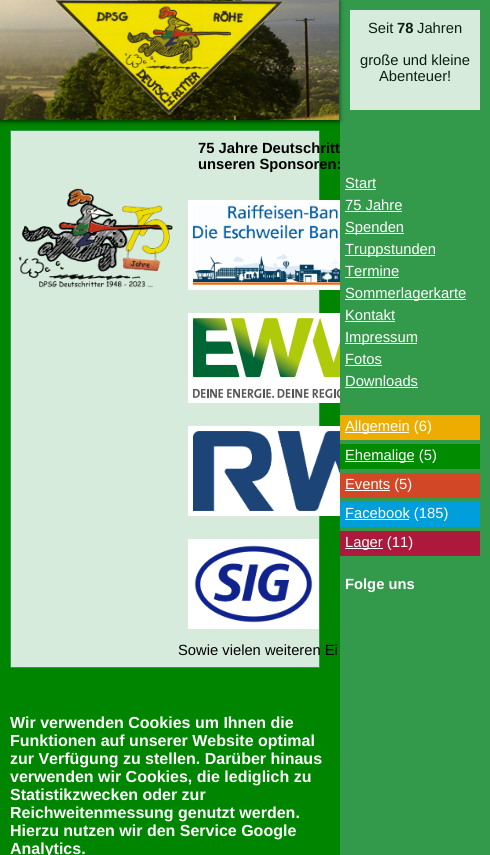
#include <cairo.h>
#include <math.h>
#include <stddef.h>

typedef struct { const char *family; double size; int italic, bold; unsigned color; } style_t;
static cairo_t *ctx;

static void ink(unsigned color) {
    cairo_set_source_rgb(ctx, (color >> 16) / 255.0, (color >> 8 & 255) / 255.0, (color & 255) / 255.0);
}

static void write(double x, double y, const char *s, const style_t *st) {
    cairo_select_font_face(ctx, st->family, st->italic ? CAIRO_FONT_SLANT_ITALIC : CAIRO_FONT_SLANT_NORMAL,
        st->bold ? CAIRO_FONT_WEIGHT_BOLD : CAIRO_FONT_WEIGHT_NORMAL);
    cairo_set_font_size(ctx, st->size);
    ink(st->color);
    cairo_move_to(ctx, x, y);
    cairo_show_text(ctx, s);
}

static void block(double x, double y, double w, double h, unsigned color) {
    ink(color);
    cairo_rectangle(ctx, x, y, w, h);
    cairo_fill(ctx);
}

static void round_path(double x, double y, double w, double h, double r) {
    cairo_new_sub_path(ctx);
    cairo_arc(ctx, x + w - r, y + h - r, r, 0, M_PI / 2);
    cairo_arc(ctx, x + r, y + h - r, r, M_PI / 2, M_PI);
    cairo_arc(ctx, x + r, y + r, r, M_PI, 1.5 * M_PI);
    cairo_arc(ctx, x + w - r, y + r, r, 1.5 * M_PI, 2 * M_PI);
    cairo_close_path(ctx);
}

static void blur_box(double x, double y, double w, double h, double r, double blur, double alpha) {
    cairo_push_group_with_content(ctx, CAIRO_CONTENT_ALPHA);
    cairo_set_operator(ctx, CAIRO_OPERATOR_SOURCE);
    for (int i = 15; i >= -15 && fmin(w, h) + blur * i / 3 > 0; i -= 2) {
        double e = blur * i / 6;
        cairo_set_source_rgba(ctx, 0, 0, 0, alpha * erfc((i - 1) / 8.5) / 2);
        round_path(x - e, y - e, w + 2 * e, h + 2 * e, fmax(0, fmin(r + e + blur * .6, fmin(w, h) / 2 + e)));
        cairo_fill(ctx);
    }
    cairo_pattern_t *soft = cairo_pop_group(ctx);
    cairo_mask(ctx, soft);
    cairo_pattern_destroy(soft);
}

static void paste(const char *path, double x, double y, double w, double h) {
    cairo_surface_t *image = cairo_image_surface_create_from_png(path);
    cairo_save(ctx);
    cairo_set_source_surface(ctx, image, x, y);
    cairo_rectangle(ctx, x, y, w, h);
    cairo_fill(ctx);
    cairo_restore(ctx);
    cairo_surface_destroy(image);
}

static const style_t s1 = {"Liberation Sans", 14.75, 0, 0, 0x0a1f0f};
static const style_t s2 = {"Liberation Sans", 14.75, 0, 1, 0x0a1f0f};
static const style_t s3 = {"Liberation Sans", 14.75, 0, 1, 0x000000};
static const style_t s4 = {"Liberation Sans", 14.75, 0, 0, 0x000000};
static const style_t s5 = {"Liberation Sans", 16, 0, 1, 0xffffff};
static const style_t s6 = {"Liberation Sans", 14.75, 0, 0, 0xffffff};
static const style_t s7 = {"Liberation Sans", 14.75, 0, 1, 0xffffff};

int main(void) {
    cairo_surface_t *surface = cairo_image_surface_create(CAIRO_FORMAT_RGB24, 490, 855);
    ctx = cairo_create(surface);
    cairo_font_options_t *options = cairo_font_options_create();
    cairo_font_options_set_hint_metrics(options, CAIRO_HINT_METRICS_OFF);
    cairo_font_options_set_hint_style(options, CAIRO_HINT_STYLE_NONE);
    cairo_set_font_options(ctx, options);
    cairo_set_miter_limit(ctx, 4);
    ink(0x339a4b);
    cairo_paint(ctx);
    block(0, 120, 340, 735, 0x008500);
    ink(0x000000);
    blur_box(0, 1, 339, 120, 0, 2.5, 0.75);
    paste("pic1.png", 0, 0, 339, 120);
    paste("pic2.png", 55, 0, 229, 120);
    block(350, 10, 130, 100, 0xd6ebdb);
    write(368, 33, "Seit", &s1);
    write(397, 33, "78", &s2);
    write(417, 33, "Jahren", &s1);
    write(360, 65, "große und kleine", &s1);
    write(379, 81, "Abenteuer!", &s1);
    ink(0xd6ebdb);
    cairo_rectangle(ctx, 10.5, 130.5, 309, 537);
    cairo_fill_preserve(ctx);
    ink(0x339a4b);
    cairo_set_line_width(ctx, 1);
    cairo_stroke(ctx);
    paste("pic3.png", 18, 188, 155, 100);
    write(198, 153, "75 Jahre Deutschritt", &s3);
    write(198, 169, "unseren Sponsoren:", &s3);
    block(188, 200, 152, 90, 0xffffff);
    paste("pic4.png", 193, 205, 147, 80);
    block(188, 313, 152, 90, 0xffffff);
    paste("pic5.png", 193, 318, 147, 80);
    block(188, 426, 152, 90, 0xffffff);
    paste("pic6.png", 193, 431, 147, 80);
    block(188, 539, 131, 90, 0xffffff);
    paste("pic7.png", 194, 545, 119, 78);
    write(178, 655, "Sowie vielen weiteren Ei", &s4);
    write(10, 728, "Wir verwenden Cookies um Ihnen die", &s5);
    write(10, 746, "Funktionen auf unserer Website optimal", &s5);
    write(10, 764, "zur Verfügung zu stellen. Darüber hinaus", &s5);
    write(10, 782, "verwenden wir Cookies, die lediglich zu", &s5);
    write(10, 800, "Statistikzwecken oder zur", &s5);
    write(10, 818, "Reichweitenmessung genutzt werden.", &s5);
    write(10, 836, "Hierzu nutzen wir den Service Google", &s5);
    write(10, 854, "Analytics.", &s5);
    write(345, 188, "Start", &s6);
    block(345, 189, 31, 1, 0xffffff);
    write(345, 210, "75 Jahre", &s6);
    block(345, 211, 57, 1, 0xffffff);
    block(345, 233, 59, 1, 0xffffff);
    write(345, 232, "Spenden", &s6);
    block(345, 255, 90, 1, 0xffffff);
    write(345, 254, "Truppstunden", &s6);
    write(345, 276, "Termine", &s6);
    block(345, 277, 54, 1, 0xffffff);
    block(345, 299, 121, 1, 0xffffff);
    write(345, 298, "Sommerlagerkarte", &s6);
    write(345, 320, "Kontakt", &s6);
    block(345, 321, 50, 1, 0xffffff);
    block(345, 343, 72, 1, 0xffffff);
    write(345, 342, "Impressum", &s6);
    write(345, 364, "Fotos", &s6);
    block(345, 365, 37, 1, 0xffffff);
    write(345, 386, "Downloads", &s6);
    block(345, 387, 73, 1, 0xffffff);
    block(340, 415, 140, 25, 0xecad00);
    block(345, 432, 64, 1, 0xffffff);
    write(345, 431, "Allgemein (6)", &s6);
    block(340, 444, 140, 25, 0x008b00);
    block(345, 461, 69, 1, 0xffffff);
    write(345, 460, "Ehemalige (5)", &s6);
    block(340, 473, 140, 25, 0xd24726);
    block(345, 490, 45, 1, 0xffffff);
    write(345, 489, "Events (5)", &s6);
    block(340, 502, 140, 25, 0x009edb);
    block(345, 519, 64, 1, 0xffffff);
    write(345, 518, "Facebook (185)", &s6);
    block(340, 531, 140, 25, 0xac193d);
    block(345, 548, 38, 1, 0xffffff);
    write(345, 547, "Lager (11)", &s6);
    write(345, 589, "Folge uns", &s7);
    cairo_surface_write_to_png(surface, "screenshot.png");
    cairo_font_options_destroy(options);
    cairo_destroy(ctx);
    cairo_surface_destroy(surface);
    return 0;
}
